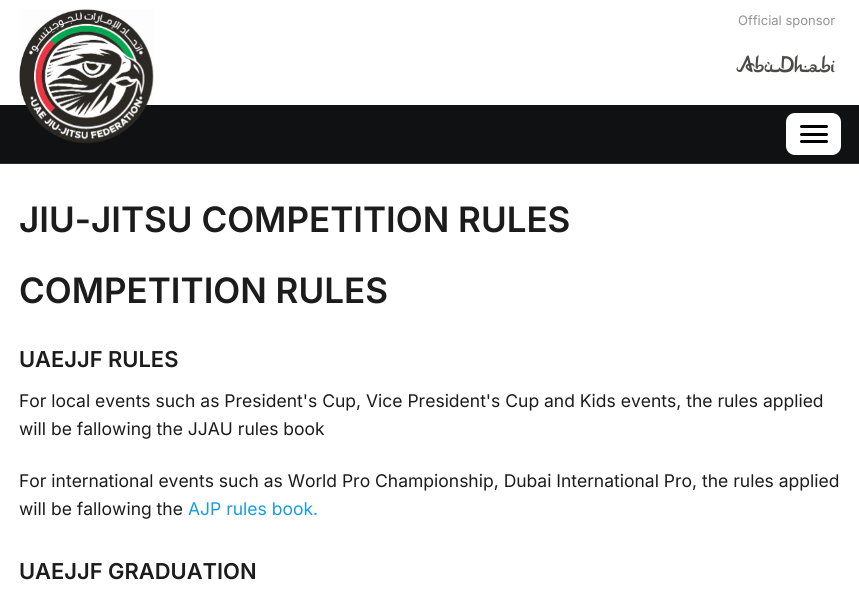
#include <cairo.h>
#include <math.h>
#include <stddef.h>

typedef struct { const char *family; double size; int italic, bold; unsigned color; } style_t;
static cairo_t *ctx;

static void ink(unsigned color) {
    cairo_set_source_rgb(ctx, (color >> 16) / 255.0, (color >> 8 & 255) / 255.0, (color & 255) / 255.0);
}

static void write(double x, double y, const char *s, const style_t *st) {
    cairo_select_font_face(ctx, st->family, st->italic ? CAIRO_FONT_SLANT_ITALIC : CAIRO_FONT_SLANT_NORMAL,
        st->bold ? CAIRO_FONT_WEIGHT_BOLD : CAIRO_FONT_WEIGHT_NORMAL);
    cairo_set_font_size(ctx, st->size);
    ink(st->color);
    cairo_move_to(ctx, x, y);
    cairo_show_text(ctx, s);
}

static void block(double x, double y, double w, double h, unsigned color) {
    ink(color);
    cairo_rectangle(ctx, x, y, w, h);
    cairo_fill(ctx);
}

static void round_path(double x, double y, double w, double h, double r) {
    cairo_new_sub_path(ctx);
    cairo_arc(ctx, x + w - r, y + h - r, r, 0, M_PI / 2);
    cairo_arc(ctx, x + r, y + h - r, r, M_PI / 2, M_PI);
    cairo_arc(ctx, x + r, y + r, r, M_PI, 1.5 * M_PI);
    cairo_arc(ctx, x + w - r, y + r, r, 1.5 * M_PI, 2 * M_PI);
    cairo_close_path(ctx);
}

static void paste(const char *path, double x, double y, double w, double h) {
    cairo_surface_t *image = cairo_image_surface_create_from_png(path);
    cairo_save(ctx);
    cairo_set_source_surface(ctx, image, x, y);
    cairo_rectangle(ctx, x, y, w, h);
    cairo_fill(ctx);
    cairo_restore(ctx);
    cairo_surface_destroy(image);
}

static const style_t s1 = {"Inter", 13, 0, 0, 0x939393};
static const style_t s2 = {"Inter SemiBold", 35, 0, 0, 0x1c1c1c};
static const style_t s3 = {"Inter SemiBold", 21.9, 0, 0, 0x1c1c1c};
static const style_t s4 = {"Inter", 17.5, 0, 0, 0x1c1c1c};
static const style_t s5 = {"Inter", 17.5, 0, 0, 0x179de0};

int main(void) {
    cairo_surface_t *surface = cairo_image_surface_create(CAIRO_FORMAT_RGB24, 859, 604);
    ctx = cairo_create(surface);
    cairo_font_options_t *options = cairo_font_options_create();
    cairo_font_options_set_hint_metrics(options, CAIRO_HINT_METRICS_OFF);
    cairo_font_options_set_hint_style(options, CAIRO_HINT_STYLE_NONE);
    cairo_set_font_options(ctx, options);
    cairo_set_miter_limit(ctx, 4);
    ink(0xffffff);
    cairo_paint(ctx);
    block(0, 163, 859, 1, 0x2d2d2d);
    block(0, 105, 859, 58, 0x101112);
    paste("pic1.png", 19, 9, 135, 135);
    write(738, 25, "Official sponsor", &s1);
    paste("pic2.png", 736, 55, 100, 18);
    ink(0xffffff);
    round_path(786, 113, 55, 42, 9);
    cairo_fill(ctx);
    ink(0x000000);
    round_path(800, 125, 28, 3, 1.5);
    cairo_fill(ctx);
    round_path(800, 133, 28, 3, 1.5);
    cairo_fill(ctx);
    round_path(800, 140, 28, 3, 1.5);
    cairo_fill(ctx);
    write(19, 232, "JIU-JITSU COMPETITION RULES", &s2);
    write(19, 303, "COMPETITION RULES", &s2);
    write(19, 367, "UAEJJF RULES", &s3);
    write(19, 407, "For local events such as President's Cup, Vice President's Cup and Kids events, the rules applied", &s4);
    write(19, 435, "will be fallowing the JJAU rules book", &s4);
    write(19, 487, "For international events such as World Pro Championship, Dubai International Pro, the rules applied", &s4);
    write(19, 515, "will be fallowing the", &s4);
    write(188, 515, "AJP rules book.", &s5);
    write(19, 579, "UAEJJF GRADUATION", &s3);
    cairo_surface_write_to_png(surface, "screenshot.png");
    cairo_font_options_destroy(options);
    cairo_destroy(ctx);
    cairo_surface_destroy(surface);
    return 0;
}
